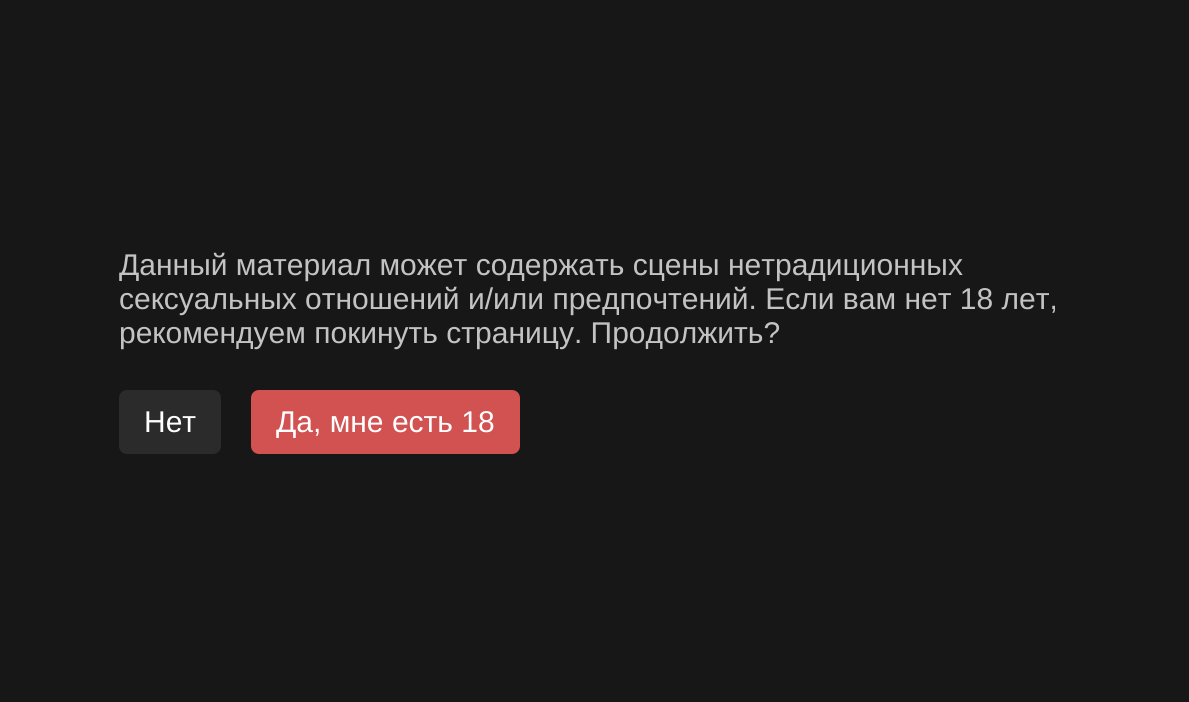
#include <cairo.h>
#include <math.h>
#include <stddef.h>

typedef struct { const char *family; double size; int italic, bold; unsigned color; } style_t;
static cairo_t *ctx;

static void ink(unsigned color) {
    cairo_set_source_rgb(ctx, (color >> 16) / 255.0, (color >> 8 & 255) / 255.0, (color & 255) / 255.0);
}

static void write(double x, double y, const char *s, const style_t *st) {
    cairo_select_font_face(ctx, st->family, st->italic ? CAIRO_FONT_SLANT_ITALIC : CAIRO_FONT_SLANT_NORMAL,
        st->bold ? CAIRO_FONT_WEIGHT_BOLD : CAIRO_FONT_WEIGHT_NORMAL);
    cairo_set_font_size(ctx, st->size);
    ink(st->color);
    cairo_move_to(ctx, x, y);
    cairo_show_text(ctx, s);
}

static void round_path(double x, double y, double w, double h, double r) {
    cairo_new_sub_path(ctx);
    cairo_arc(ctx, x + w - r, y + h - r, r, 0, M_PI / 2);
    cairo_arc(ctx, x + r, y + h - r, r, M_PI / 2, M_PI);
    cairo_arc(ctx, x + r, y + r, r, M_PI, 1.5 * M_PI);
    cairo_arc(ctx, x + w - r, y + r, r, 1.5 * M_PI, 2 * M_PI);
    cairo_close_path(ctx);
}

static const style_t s1 = {"Liberation Sans", 30, 0, 0, 0xc3c3c3};
static const style_t s2 = {"Liberation Sans", 30, 0, 0, 0xffffff};

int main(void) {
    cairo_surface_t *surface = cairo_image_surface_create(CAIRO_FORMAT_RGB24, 1189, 702);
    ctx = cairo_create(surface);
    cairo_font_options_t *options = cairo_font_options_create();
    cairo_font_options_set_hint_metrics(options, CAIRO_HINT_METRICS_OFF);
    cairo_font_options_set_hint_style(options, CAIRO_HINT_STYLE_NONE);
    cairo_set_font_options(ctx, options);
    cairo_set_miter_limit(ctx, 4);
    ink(0x171717);
    cairo_paint(ctx);
    write(119, 275, "Данный материал может содержать сцены нетрадиционных", &s1);
    write(119, 309, "сексуальных отношений и/или предпочтений. Если вам нет 18 лет,", &s1);
    write(119, 343, "рекомендуем покинуть страницу. Продолжить?", &s1);
    ink(0x2b2b2b);
    round_path(119, 390, 102, 64, 8);
    cairo_fill(ctx);
    write(144, 432, "Нет", &s2);
    ink(0xd25151);
    round_path(251, 390, 269, 64, 8);
    cairo_fill(ctx);
    write(276, 432, "Да, мне есть 18", &s2);
    cairo_surface_write_to_png(surface, "screenshot.png");
    cairo_font_options_destroy(options);
    cairo_destroy(ctx);
    cairo_surface_destroy(surface);
    return 0;
}
